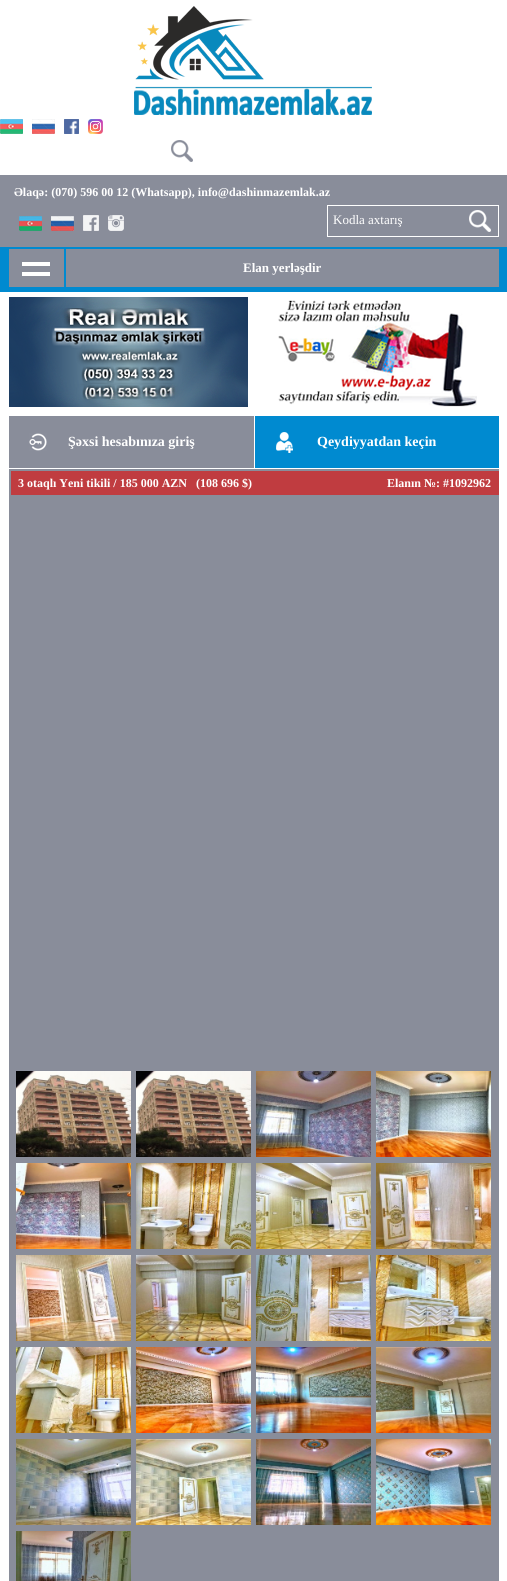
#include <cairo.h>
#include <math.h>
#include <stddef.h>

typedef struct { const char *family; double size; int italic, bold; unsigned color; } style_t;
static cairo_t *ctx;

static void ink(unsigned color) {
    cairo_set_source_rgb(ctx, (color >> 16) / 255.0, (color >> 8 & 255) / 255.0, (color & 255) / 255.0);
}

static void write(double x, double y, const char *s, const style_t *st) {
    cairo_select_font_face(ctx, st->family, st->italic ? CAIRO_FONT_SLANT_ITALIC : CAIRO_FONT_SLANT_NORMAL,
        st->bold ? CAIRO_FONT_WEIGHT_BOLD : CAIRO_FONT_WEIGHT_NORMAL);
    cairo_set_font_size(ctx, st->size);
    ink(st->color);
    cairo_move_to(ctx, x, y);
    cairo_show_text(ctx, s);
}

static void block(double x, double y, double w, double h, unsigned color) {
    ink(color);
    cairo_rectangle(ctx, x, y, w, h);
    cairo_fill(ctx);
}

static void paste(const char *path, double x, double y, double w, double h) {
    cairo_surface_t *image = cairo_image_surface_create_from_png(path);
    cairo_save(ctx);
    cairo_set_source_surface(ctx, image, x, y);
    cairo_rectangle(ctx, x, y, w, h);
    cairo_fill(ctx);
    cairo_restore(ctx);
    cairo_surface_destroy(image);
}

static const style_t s1 = {"Liberation Serif", 12, 0, 1, 0xffffff};
static const style_t s2 = {"Liberation Serif", 13, 0, 0, 0xffffff};
static const style_t s3 = {"Liberation Serif", 13, 0, 1, 0xffffff};
static const style_t s4 = {"Liberation Serif", 14, 0, 1, 0xffffff};

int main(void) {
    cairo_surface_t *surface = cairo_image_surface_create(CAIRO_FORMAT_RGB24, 507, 1581);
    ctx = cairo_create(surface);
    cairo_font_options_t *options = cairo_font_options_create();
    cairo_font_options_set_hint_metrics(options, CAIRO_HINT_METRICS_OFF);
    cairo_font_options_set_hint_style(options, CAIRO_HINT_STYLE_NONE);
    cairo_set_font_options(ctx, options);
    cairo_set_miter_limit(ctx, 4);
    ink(0xffffff);
    cairo_paint(ctx);
    paste("pic1.png", 134, 6, 238, 109);
    paste("pic2.png", 0, 119, 23, 15);
    paste("pic3.png", 32, 119, 23, 15);
    paste("pic4.png", 64, 119, 15, 15);
    paste("pic5.png", 88, 119, 15, 15);
    paste("pic6.png", 171, 140, 22, 22);
    block(0, 175, 507, 72, 0x898d9a);
    write(14, 196, "Əlaqə: (070) 596 00 12 (Whatsapp), info@dashinmazemlak.az", &s1);
    paste("pic7.png", 19, 216, 23, 15);
    paste("pic8.png", 51, 216, 23, 15);
    paste("pic9.png", 83, 215, 16, 16);
    paste("pic10.png", 108, 215, 16, 16);
    cairo_rectangle(ctx, 327.5, 205.5, 171, 31);
    cairo_set_line_width(ctx, 1);
    cairo_stroke(ctx);
    write(333, 224, "Kodla axtarış", &s2);
    paste("pic11.png", 469, 210, 22, 22);
    block(0, 247, 507, 45, 0x008ad0);
    block(9, 249, 55, 38, 0x898d9a);
    block(22, 262, 28, 4, 0xffffff);
    block(22, 272, 28, 4, 0xffffff);
    block(66, 249, 433, 38, 0x898d9a);
    write(243, 272, "Elan yerləşdir", &s3);
    paste("pic12.png", 9, 297, 239, 110);
    paste("pic13.png", 278, 300, 199, 107);
    block(9, 416, 245, 52, 0x898d9a);
    paste("pic14.png", 29, 433, 18, 18);
    write(68, 446, "Şəxsi hesabınıza giriş", &s4);
    block(255, 416, 244, 52, 0x008ad0);
    paste("pic15.png", 276, 432, 17, 21);
    write(317, 446, "Qeydiyyatdan keçin", &s4);
    block(9, 469, 490, 1112, 0x898d9a);
    block(11, 471, 488, 24, 0xc03c40);
    write(18, 487, "3 otaqlı Yeni tikili / 185 000 AZN   (108 696 $)", &s1);
    write(387, 487, "Elanın №: #1092962", &s1);
    paste("pic16.png", 16, 1071, 115, 86);
    paste("pic17.png", 136, 1071, 115, 86);
    paste("pic18.png", 256, 1071, 115, 86);
    paste("pic19.png", 376, 1071, 115, 86);
    paste("pic20.png", 16, 1163, 115, 86);
    paste("pic21.png", 136, 1163, 115, 86);
    paste("pic22.png", 256, 1163, 115, 86);
    paste("pic23.png", 376, 1163, 115, 86);
    paste("pic24.png", 16, 1255, 115, 86);
    paste("pic25.png", 136, 1255, 115, 86);
    paste("pic26.png", 256, 1255, 115, 86);
    paste("pic27.png", 376, 1255, 115, 86);
    paste("pic28.png", 16, 1347, 115, 86);
    paste("pic29.png", 136, 1347, 115, 86);
    paste("pic30.png", 256, 1347, 115, 86);
    paste("pic31.png", 376, 1347, 115, 86);
    paste("pic32.png", 16, 1439, 115, 86);
    paste("pic33.png", 136, 1439, 115, 86);
    paste("pic34.png", 256, 1439, 115, 86);
    paste("pic35.png", 376, 1439, 115, 86);
    paste("pic36.png", 16, 1531, 115, 50);
    cairo_surface_write_to_png(surface, "screenshot.png");
    cairo_font_options_destroy(options);
    cairo_destroy(ctx);
    cairo_surface_destroy(surface);
    return 0;
}
